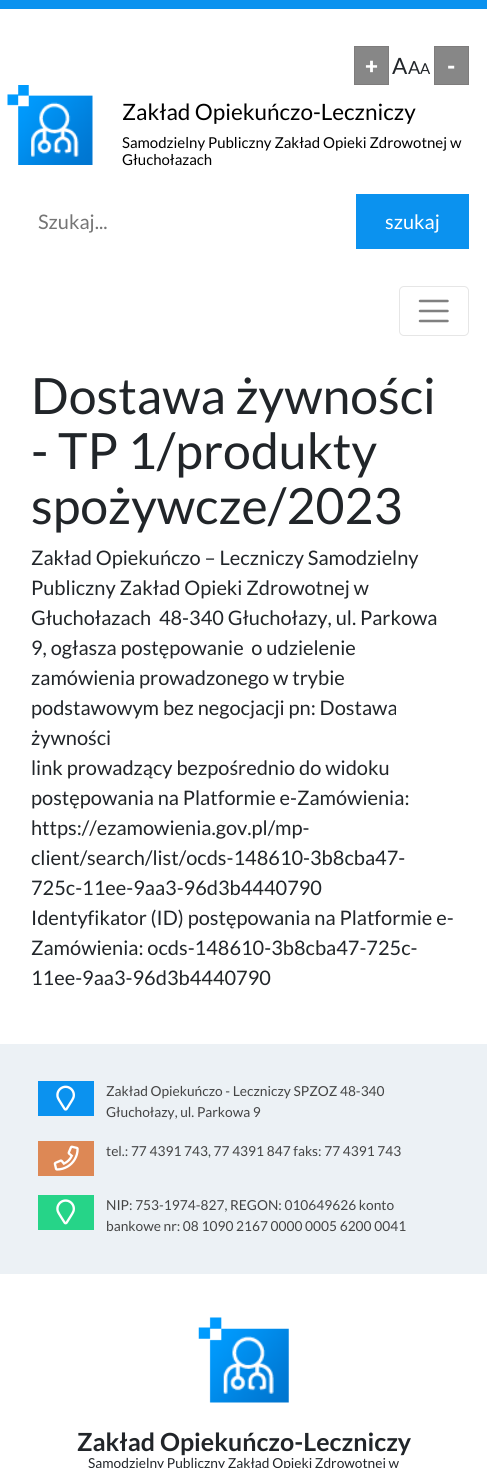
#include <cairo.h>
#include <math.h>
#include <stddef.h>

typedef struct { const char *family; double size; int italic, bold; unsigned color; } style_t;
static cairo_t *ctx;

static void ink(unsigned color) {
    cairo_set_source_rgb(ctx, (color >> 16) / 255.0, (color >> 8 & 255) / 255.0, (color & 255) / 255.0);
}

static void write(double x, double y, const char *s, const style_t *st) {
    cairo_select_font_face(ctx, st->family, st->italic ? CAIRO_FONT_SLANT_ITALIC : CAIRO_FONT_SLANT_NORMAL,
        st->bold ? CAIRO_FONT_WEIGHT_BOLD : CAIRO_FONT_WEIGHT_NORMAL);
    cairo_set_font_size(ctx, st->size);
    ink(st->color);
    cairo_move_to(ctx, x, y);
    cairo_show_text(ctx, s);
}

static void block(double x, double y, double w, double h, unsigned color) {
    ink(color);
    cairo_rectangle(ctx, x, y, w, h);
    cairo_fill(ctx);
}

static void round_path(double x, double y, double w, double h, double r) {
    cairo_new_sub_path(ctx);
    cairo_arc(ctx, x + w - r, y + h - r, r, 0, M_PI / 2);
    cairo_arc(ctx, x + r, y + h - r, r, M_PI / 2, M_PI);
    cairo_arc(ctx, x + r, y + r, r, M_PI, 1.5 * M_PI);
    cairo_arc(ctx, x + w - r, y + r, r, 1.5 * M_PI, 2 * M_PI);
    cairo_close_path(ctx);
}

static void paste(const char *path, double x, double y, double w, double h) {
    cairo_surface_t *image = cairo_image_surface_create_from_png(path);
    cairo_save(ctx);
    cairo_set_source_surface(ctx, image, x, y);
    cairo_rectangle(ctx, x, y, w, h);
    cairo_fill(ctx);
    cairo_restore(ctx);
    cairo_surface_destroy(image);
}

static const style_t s1 = {"Lato Black", 22.5, 0, 0, 0xffffff};
static const style_t s2 = {"Lato", 22.5, 0, 0, 0x212529};
static const style_t s3 = {"Lato", 18, 0, 0, 0x212529};
static const style_t s4 = {"Lato", 15, 0, 0, 0x212529};
static const style_t s5 = {"Lato", 22.5, 0, 0, 0x000000};
static const style_t s6 = {"Lato", 15, 0, 0, 0x000000};
static const style_t s7 = {"Lato", 20, 0, 0, 0x757575};
static const style_t s8 = {"Lato", 20, 0, 0, 0xffffff};
static const style_t s9 = {"Lato", 50, 0, 0, 0x212529};
static const style_t s10 = {"Lato", 20, 0, 0, 0x212529};
static const style_t s11 = {"Lato", 13.75, 0, 0, 0x444444};
static const style_t s12 = {"Lato", 25, 0, 1, 0x212529};
static const style_t s13 = {"Lato", 13.75, 0, 0, 0x212529};

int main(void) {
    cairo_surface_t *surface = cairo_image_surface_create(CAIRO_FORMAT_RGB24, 487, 1468);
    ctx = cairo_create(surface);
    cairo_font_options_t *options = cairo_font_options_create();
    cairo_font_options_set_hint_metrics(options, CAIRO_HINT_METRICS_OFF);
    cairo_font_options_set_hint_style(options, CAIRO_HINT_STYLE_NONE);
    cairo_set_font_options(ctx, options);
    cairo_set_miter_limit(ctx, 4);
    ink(0xffffff);
    cairo_paint(ctx);
    block(0, 0, 487, 9, 0x0b92ef);
    ink(0x878787);
    cairo_rectangle(ctx, 354.5, 46.5, 34, 38);
    cairo_fill_preserve(ctx);
    ink(0x7e7c7c);
    cairo_set_line_width(ctx, 1);
    cairo_stroke(ctx);
    write(365, 74, "+", &s1);
    write(392, 74, "A", &s2);
    write(408, 74, "A", &s3);
    write(420, 74, "A", &s4);
    ink(0x878787);
    cairo_rectangle(ctx, 434.5, 46.5, 34, 38);
    cairo_fill_preserve(ctx);
    ink(0x7e7c7c);
    cairo_stroke(ctx);
    write(447, 74, "-", &s1);
    paste("pic1.png", 7, 85, 86, 80);
    write(122, 120, "Zakład Opiekuńczo-Leczniczy", &s5);
    write(122, 148, "Samodzielny Publiczny Zakład Opieki Zdrowotnej w", &s6);
    write(122, 165, "Głuchołazach", &s6);
    write(38, 229, "Szukaj...", &s7);
    block(356, 194, 113, 55, 0x0b92ef);
    write(385, 229, "szukaj", &s8);
    round_path(399.5, 286.5, 69, 49, 4.5);
    ink(0xe6e6e6);
    cairo_stroke(ctx);
    cairo_new_path(ctx);
    cairo_move_to(ctx, 420, 301);
    cairo_line_to(ctx, 447.5, 301);
    cairo_move_to(ctx, 420, 311);
    cairo_line_to(ctx, 447.5, 311);
    cairo_move_to(ctx, 420, 321);
    cairo_line_to(ctx, 447.5, 321);
    ink(0x808080);
    cairo_set_line_width(ctx, 2.5);
    cairo_set_line_cap(ctx, CAIRO_LINE_CAP_ROUND);
    cairo_stroke(ctx);
    write(31, 414, "Dostawa żywności", &s9);
    write(31, 469, "- TP 1/produkty", &s9);
    write(31, 524, "spożywcze/2023", &s9);
    write(31, 565, "Zakład Opiekuńczo – Leczniczy Samodzielny", &s10);
    write(31, 595, "Publiczny Zakład Opieki Zdrowotnej w", &s10);
    write(31, 625, "Głuchołazach  48-340 Głuchołazy, ul. Parkowa", &s10);
    write(31, 655, "9, ogłasza postępowanie  o udzielenie", &s10);
    write(31, 685, "zamówienia prowadzonego w trybie", &s10);
    write(31, 715, "podstawowym bez negocjacji pn: Dostawa", &s10);
    write(31, 745, "żywności", &s10);
    write(31, 775, "link prowadzący bezpośrednio do widoku", &s10);
    write(31, 805, "postępowania na Platformie e-Zamówienia:", &s10);
    write(31, 835, "https://ezamowienia.gov.pl/mp-", &s10);
    write(31, 865, "client/search/list/ocds-148610-3b8cba47-", &s10);
    write(31, 895, "725c-11ee-9aa3-96d3b4440790", &s10);
    write(31, 925, "Identyfikator (ID) postępowania na Platformie e-", &s10);
    write(31, 955, "Zamówienia: ocds-148610-3b8cba47-725c-", &s10);
    write(31, 985, "11ee-9aa3-96d3b4440790", &s10);
    block(0, 1044, 487, 230, 0xecf1f5);
    block(38, 1081, 56, 35, 0x0b92ef);
    paste("pic2.png", 56, 1085, 19, 26);
    write(106, 1096, "Zakład Opiekuńczo - Leczniczy SPZOZ 48-340", &s11);
    write(106, 1117, "Głuchołazy, ul. Parkowa 9", &s11);
    block(38, 1141, 56, 35, 0xdd8855);
    paste("pic3.png", 53, 1145, 26, 26);
    write(106, 1156, "tel.: 77 4391 743, 77 4391 847 faks: 77 4391 743", &s11);
    block(38, 1195, 56, 35, 0x26d488);
    paste("pic4.png", 56, 1199, 19, 26);
    write(106, 1210, "NIP: 753-1974-827, REGON: 010649626 konto", &s11);
    write(106, 1231, "bankowe nr: 08 1090 2167 0000 0005 6200 0041", &s11);
    paste("pic5.png", 198, 1317, 91, 86);
    write(77, 1451, "Zakład Opiekuńczo-Leczniczy", &s12);
    write(88, 1468, "Samodzielny Publiczny Zakład Opieki Zdrowotnej w", &s13);
    cairo_surface_write_to_png(surface, "screenshot.png");
    cairo_font_options_destroy(options);
    cairo_destroy(ctx);
    cairo_surface_destroy(surface);
    return 0;
}
